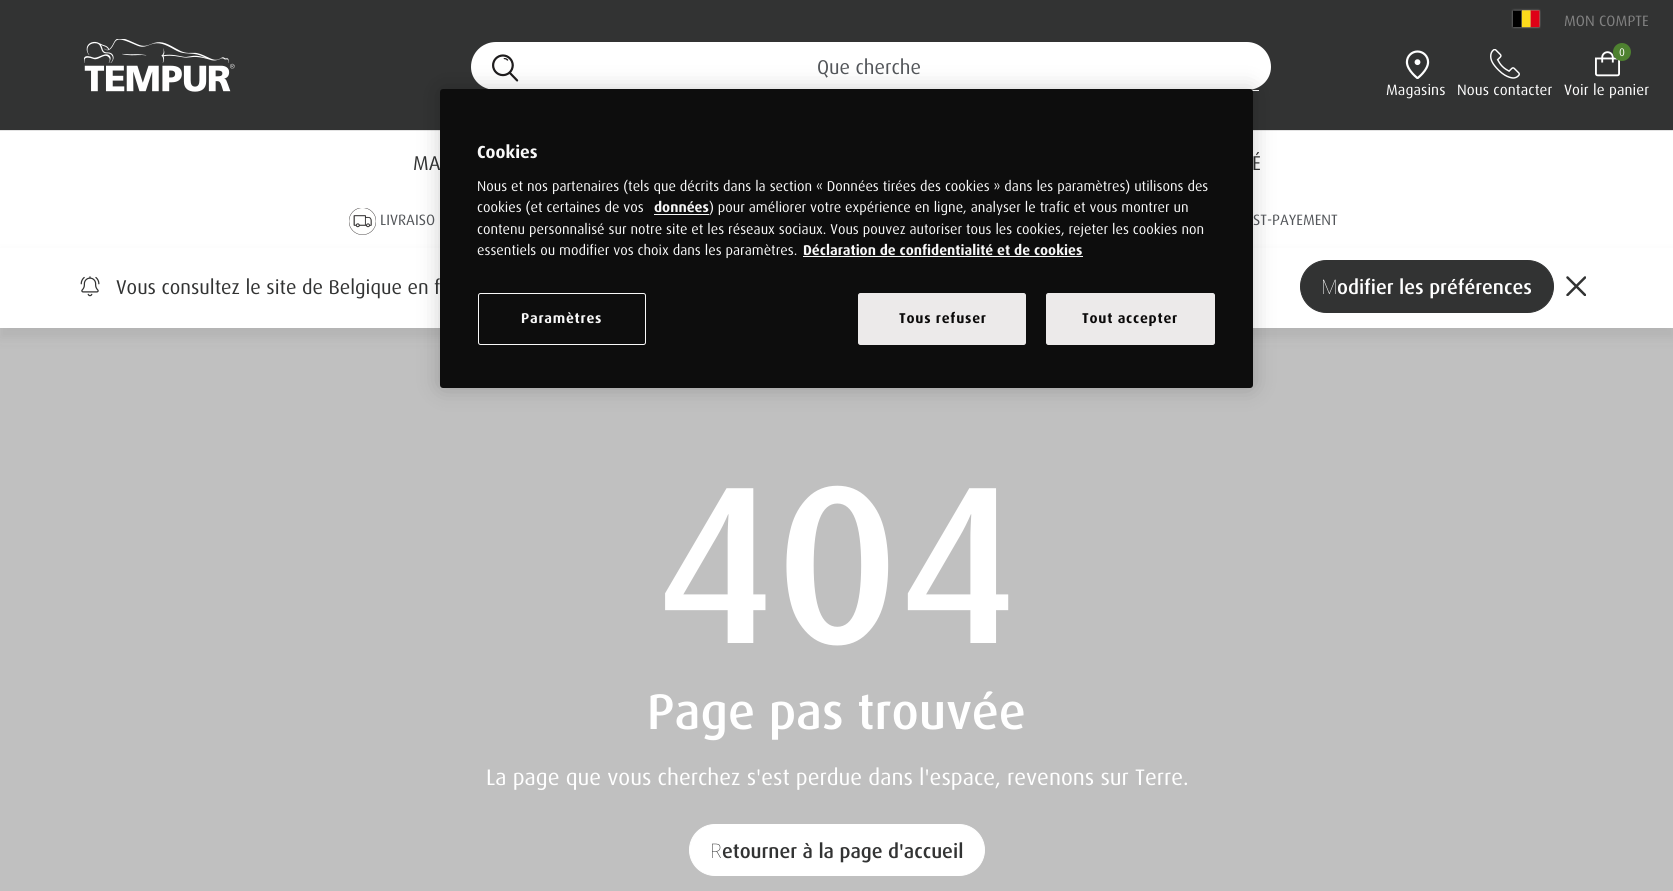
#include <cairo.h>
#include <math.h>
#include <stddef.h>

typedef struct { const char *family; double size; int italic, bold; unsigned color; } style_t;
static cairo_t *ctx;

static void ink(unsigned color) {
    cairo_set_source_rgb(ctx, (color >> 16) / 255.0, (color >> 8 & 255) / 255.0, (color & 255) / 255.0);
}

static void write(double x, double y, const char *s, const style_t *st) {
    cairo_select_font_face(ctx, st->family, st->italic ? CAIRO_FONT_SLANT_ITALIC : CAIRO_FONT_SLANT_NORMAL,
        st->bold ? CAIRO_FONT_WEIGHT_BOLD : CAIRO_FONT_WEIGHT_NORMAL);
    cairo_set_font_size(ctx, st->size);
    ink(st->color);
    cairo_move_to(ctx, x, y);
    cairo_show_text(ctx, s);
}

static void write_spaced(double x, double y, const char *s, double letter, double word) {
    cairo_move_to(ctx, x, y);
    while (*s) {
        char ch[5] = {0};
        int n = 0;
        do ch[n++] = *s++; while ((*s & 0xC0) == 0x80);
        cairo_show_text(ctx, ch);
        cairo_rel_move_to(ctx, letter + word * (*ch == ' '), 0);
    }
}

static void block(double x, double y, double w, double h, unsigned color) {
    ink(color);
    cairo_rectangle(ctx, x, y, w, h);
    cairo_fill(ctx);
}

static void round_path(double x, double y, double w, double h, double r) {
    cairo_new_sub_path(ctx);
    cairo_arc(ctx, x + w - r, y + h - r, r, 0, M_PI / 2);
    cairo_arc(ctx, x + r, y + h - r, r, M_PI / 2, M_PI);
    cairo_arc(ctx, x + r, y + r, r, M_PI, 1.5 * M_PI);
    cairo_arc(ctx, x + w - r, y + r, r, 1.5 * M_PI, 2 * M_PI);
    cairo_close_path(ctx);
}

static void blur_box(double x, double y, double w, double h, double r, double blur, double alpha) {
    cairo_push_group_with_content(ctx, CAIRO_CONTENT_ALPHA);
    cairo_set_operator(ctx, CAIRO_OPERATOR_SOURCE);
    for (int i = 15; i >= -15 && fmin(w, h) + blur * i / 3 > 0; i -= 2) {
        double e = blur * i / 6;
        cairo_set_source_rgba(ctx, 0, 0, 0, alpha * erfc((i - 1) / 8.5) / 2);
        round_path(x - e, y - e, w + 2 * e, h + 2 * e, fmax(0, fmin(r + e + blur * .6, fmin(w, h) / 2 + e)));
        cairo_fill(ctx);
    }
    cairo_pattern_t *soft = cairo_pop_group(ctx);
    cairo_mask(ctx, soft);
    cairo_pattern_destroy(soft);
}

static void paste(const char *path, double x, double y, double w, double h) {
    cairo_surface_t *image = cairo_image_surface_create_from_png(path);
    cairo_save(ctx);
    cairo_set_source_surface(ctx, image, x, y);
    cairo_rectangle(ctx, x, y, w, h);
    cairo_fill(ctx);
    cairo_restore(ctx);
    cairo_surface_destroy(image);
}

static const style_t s1 = {"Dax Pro", 20, 0, 0, 0x53565a};
static const style_t s2 = {"Dax Pro", 20, 0, 0, 0x323333};
static const style_t s3 = {"Dax Pro", 15, 0, 0, 0x53565a};
static const style_t s4 = {"Noto Sans Thin", 20, 0, 0, 0xffffff};
static const style_t s5 = {"Dax Pro Medium", 20, 0, 0, 0xffffff};
static const style_t s6 = {"Dax Pro Medium", 225, 0, 0, 0xffffff};
static const style_t s7 = {"Dax Pro Medium", 50, 0, 0, 0xffffff};
static const style_t s8 = {"Dax Pro", 22.5, 0, 0, 0xffffff};
static const style_t s9 = {"Noto Sans Thin", 20, 0, 0, 0x323333};
static const style_t s10 = {"Dax Pro Medium", 20, 0, 0, 0x323333};
static const style_t s11 = {"Dax Pro", 17.5, 0, 1, 0xf8f8f8};
static const style_t s12 = {"Dax Pro", 14.23, 0, 0, 0xf8f8f8};
static const style_t s13 = {"Dax Pro", 14.23, 0, 1, 0xf8f8f8};

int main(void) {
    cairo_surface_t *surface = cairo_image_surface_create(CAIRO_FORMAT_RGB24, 1673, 891);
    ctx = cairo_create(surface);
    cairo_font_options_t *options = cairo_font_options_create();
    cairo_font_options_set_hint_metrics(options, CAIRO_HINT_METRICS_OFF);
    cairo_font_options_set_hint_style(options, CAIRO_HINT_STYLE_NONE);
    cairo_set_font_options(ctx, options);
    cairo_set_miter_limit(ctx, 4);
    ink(0xffffff);
    cairo_paint(ctx);
    block(0, 0, 1673, 130, 0x323333);
    paste("pic1.png", 1511, 8, 30, 21);
    cairo_select_font_face(ctx, "Dax Pro", CAIRO_FONT_SLANT_NORMAL, CAIRO_FONT_WEIGHT_NORMAL);
    cairo_set_font_size(ctx, 15);
    ink(0x828282);
    write_spaced(1564, 26, "MON COMPTE", 0.1, 0);
    paste("pic2.png", 84, 39, 151, 53);
    ink(0xffffff);
    cairo_new_path(ctx);
    cairo_move_to(ctx, 496, 42);
    cairo_line_to(ctx, 1247, 42);
    cairo_curve_to(ctx, 1260, 42, 1271, 53, 1271, 67);
    cairo_curve_to(ctx, 1271, 80, 1260, 90, 1247, 90);
    cairo_line_to(ctx, 496, 90);
    cairo_curve_to(ctx, 482, 90, 471, 80, 471, 67);
    cairo_curve_to(ctx, 471, 53, 482, 42, 496, 42);
    cairo_close_path(ctx);
    cairo_fill(ctx);
    paste("pic3.png", 492, 54, 27, 28);
    block(1252, 90, 7, 1, 0xffffff);
    write(817, 74, "Que cherche", &s1);
    paste("pic4.png", 1405, 50, 25, 29);
    cairo_set_font_size(ctx, 15);
    ink(0xffffff);
    write_spaced(1386, 95, "Magasins", 0.1, 0);
    paste("pic5.png", 1490, 49, 30, 30);
    write_spaced(1457, 95, "Nous contacter", 0.1, 0);
    paste("pic6.png", 1595, 51, 25, 26);
    ink(0x4e8130);
    cairo_arc(ctx, 1622, 52, 9, 0, 2 * M_PI);
    cairo_fill(ctx);
    cairo_set_font_size(ctx, 11);
    ink(0xffffff);
    write_spaced(1619, 56, "0", 0.1, 0);
    cairo_set_font_size(ctx, 15);
    write_spaced(1564, 95, "Voir le panier", 0.1, 0);
    write(413, 170, "MA", &s2);
    write(1252, 170, "É", &s2);
    paste("pic7.png", 349, 208, 27, 27);
    write(380, 225, "LIVRAISO", &s3);
    write(1253, 225, "ST-PAYEMENT", &s3);
    block(0, 328, 1673, 563, 0xc0c0c0);
    ink(0x333232);
    blur_box(0, 255, 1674, 83, 0, 6, 0.09);
    block(0, 248, 1673, 80, 0xffffff);
    paste("pic8.png", 80, 276, 20, 21);
    write(116, 294, "Vous consultez le site de Belgique en f", &s2);
    round_path(1300.5, 260.5, 253, 52, 26);
    cairo_fill_preserve(ctx);
    cairo_set_line_width(ctx, 1);
    cairo_stroke(ctx);
    write(1321, 294, "M", &s4);
    write(1337, 294, "odifier les préférences", &s5);
    paste("pic9.png", 1566, 276, 20, 20);
    paste("pic10.png", 1571, 281, 12, 12);
    block(0, 130, 1673, 1, 0xe3e3e3);
    write(657, 643, "404", &s6);
    write(647, 729, "Page pas trouvée", &s7);
    write(486, 785, "La page que vous cherchez s'est perdue dans l'espace, revenons sur Terre.", &s8);
    round_path(689.5, 824.5, 295, 51, 25.5);
    cairo_fill_preserve(ctx);
    cairo_stroke(ctx);
    write(710, 858, "R", &s9);
    write(722, 858, "etourner à la page d'accueil", &s10);
    ink(0x000000);
    blur_box(440, 89, 813, 299, 3, 11, 0.2);
    ink(0x0d0d0d);
    round_path(440, 89, 813, 299, 3);
    cairo_fill(ctx);
    write(477, 158, "Cookies", &s11);
    write(477, 191, "Nous et nos partenaires (tels que décrits dans la section « Données tirées des cookies » dans les paramètres) utilisons des", &s12);
    write(477, 212, "cookies (et certaines de vos", &s12);
    write(654, 212, "données", &s13);
    block(654, 214, 55, 1, 0xf7f7f7);
    write(709, 212, ") pour améliorer votre expérience en ligne, analyser le trafic et vous montrer un", &s12);
    write(477, 234, "contenu personnalisé sur notre site et les réseaux sociaux. Vous pouvez autoriser tous les cookies, rejeter les cookies non", &s12);
    write(477, 255, "essentiels ou modifier vos choix dans les paramètres.", &s12);
    write(803, 255, "Déclaration de confidentialité et de cookies", &s13);
    block(803, 256, 280, 1, 0xf7f7f7);
    round_path(478.5, 293.5, 167, 51, 2);
    ink(0xf8f8f8);
    cairo_stroke(ctx);
    write_spaced(521, 323, "Paramètres", 0.75, 0);
    ink(0xeceaea);
    round_path(858.5, 293.5, 167, 51, 2);
    cairo_fill_preserve(ctx);
    cairo_stroke(ctx);
    ink(0x0b0a0a);
    write_spaced(899, 323, "Tous refuser", 0.75, 0);
    ink(0xeceaea);
    round_path(1046.5, 293.5, 168, 51, 2);
    cairo_fill_preserve(ctx);
    cairo_stroke(ctx);
    ink(0x0b0a0a);
    write_spaced(1082, 323, "Tout accepter", 0.75, 0);
    cairo_surface_write_to_png(surface, "screenshot.png");
    cairo_font_options_destroy(options);
    cairo_destroy(ctx);
    cairo_surface_destroy(surface);
    return 0;
}
